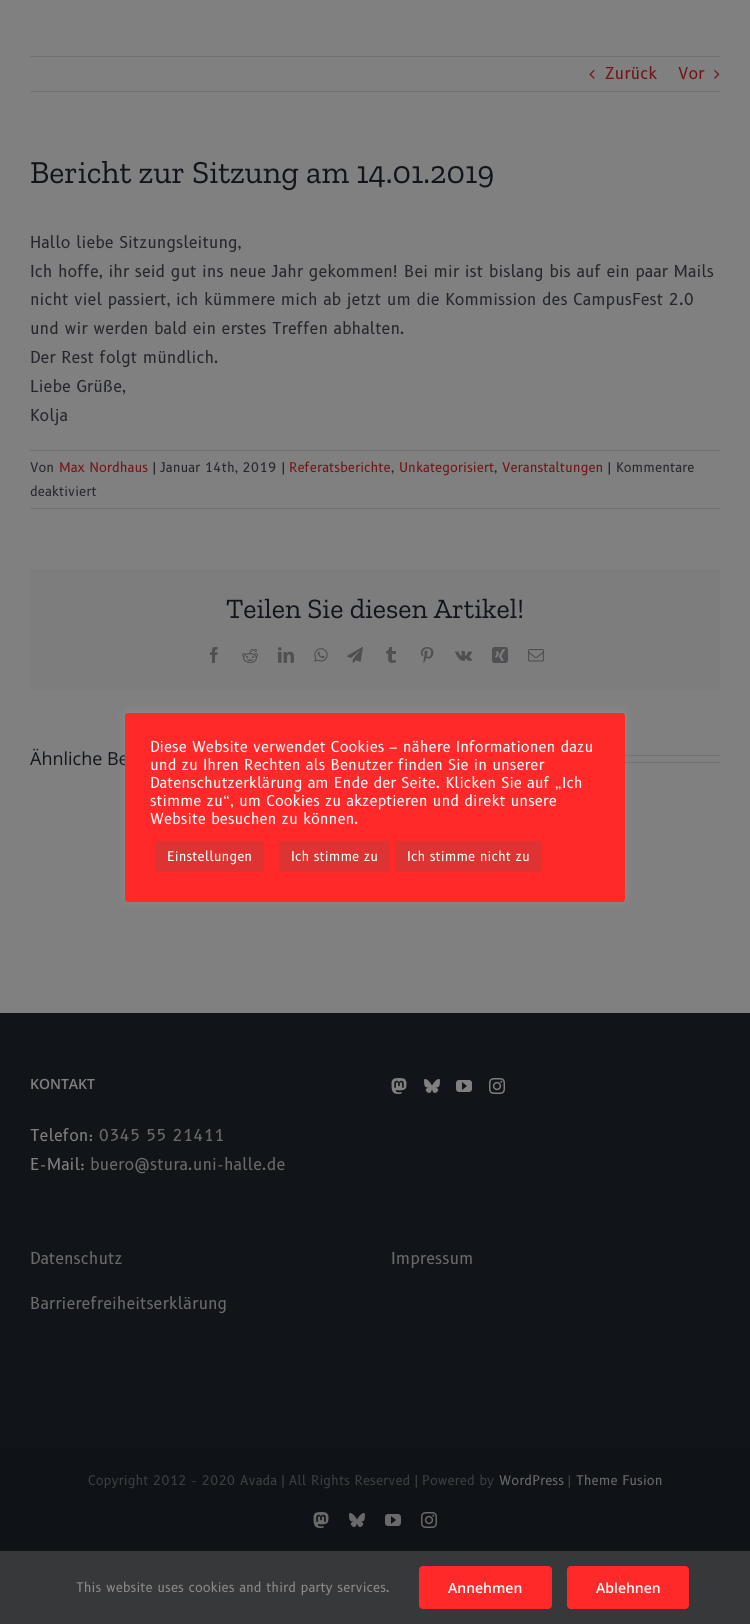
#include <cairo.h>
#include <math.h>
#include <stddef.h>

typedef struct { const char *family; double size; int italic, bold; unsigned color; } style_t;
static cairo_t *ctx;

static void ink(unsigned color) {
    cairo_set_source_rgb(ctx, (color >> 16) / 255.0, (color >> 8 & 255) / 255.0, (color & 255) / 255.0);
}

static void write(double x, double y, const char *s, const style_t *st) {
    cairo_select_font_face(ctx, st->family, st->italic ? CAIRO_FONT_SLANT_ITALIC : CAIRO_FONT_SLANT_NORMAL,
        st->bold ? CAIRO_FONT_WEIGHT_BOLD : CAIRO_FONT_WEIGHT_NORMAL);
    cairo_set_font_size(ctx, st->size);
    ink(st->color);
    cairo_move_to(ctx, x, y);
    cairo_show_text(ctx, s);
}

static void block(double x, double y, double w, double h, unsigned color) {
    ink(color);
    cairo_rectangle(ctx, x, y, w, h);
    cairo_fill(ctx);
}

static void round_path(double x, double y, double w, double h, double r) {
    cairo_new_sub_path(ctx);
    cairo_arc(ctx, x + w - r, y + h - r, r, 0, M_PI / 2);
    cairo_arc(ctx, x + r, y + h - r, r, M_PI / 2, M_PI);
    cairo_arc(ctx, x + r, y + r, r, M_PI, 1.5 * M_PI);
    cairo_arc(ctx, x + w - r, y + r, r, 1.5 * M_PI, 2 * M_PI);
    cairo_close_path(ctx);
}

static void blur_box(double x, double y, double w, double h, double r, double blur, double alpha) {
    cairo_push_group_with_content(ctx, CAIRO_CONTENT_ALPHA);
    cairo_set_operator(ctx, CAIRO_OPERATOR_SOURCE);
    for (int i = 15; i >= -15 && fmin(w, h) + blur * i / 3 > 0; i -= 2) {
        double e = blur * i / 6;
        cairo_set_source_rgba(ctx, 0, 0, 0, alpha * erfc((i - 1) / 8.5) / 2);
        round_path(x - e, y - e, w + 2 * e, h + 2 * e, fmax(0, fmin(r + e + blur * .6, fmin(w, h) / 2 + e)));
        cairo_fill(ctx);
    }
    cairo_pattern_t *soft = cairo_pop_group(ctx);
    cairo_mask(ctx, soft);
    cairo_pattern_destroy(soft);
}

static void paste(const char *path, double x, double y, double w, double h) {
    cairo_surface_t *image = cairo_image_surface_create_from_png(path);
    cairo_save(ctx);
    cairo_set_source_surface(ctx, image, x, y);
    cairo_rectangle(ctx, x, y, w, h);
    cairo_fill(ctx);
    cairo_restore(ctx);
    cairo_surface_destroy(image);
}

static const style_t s1 = {"B612", 16, 0, 0, 0x721316};
static const style_t s2 = {"Zilla Slab", 32, 0, 0, 0x11151a};
static const style_t s3 = {"B612", 16, 0, 0, 0x25272c};
static const style_t s4 = {"B612", 13, 0, 0, 0x25272c};
static const style_t s5 = {"B612", 13, 0, 0, 0x721316};
static const style_t s6 = {"Zilla Slab", 28, 0, 0, 0x11151a};
static const style_t s7 = {"Open Sans", 18, 0, 0, 0x11151a};
static const style_t s8 = {"Open Sans SemiBold", 14, 0, 0, 0x808080};
static const style_t s9 = {"B612", 16, 0, 0, 0x808080};
static const style_t s10 = {"B612", 16, 0, 0, 0x6a6a6b};
static const style_t s11 = {"B612", 13, 0, 0, 0x3c3e41};
static const style_t s12 = {"B612", 13, 0, 0, 0x6a6a6b};
static const style_t s13 = {"B612", 14.7, 0, 0, 0xffffff};
static const style_t s14 = {"B612", 13, 0, 0, 0xffffff};
static const style_t s15 = {"B612", 13, 0, 0, 0x8c8989};
static const style_t s16 = {"Open Sans SemiBold", 14, 0, 0, 0xffffff};

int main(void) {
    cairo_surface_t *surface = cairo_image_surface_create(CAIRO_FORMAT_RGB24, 750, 1624);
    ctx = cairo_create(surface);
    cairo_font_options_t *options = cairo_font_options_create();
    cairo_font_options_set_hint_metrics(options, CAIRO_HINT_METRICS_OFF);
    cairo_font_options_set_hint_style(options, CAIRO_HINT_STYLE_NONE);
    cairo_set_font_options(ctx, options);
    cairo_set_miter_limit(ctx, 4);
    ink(0x808080);
    cairo_paint(ctx);
    block(30, 56, 690, 1, 0x717171);
    block(30, 91, 690, 1, 0x717171);
    paste("pic1.png", 589, 70, 6, 9);
    write(605, 79, "Zurück", &s1);
    write(678, 79, "Vor", &s1);
    paste("pic2.png", 714, 70, 6, 9);
    write(30, 183, "Bericht zur Sitzung am 14.01.2019", &s2);
    write(30, 248, "Hallo liebe Sitzungsleitung,", &s3);
    write(30, 277, "Ich hoffe, ihr seid gut ins neue Jahr gekommen! Bei mir ist bislang bis auf ein paar Mails", &s3);
    write(30, 305, "nicht viel passiert, ich kümmere mich ab jetzt um die Kommission des CampusFest 2.0", &s3);
    write(30, 334, "und wir werden bald ein erstes Treffen abhalten.", &s3);
    write(30, 363, "Der Rest folgt mündlich.", &s3);
    write(30, 392, "Liebe Grüße,", &s3);
    write(30, 421, "Kolja", &s3);
    block(30, 450, 690, 1, 0x717171);
    block(30, 508, 690, 1, 0x717171);
    write(30, 472, "Von", &s4);
    write(59, 472, "Max Nordhaus", &s5);
    write(153, 472, "|", &s4);
    write(160, 472, "Januar 14th, 2019", &s4);
    write(282, 472, "|", &s4);
    write(289, 472, "Referatsberichte", &s5);
    write(391, 472, ",", &s4);
    write(399, 472, "Unkategorisiert", &s5);
    write(494, 472, ",", &s4);
    write(502, 472, "Veranstaltungen", &s5);
    write(608, 472, "|", &s4);
    write(616, 472, "Kommentare", &s4);
    write(30, 496, "deaktiviert", &s4);
    block(30, 569, 690, 121, 0x7d7d7e);
    write(226, 618, "Teilen Sie diesen Artikel!", &s6);
    paste("pic3.png", 210, 647, 8, 16);
    paste("pic4.png", 242, 649, 16, 14);
    paste("pic5.png", 278, 647, 16, 16);
    paste("pic6.png", 314, 648, 14, 14);
    paste("pic7.png", 347, 647, 16, 16);
    paste("pic8.png", 386, 647, 10, 16);
    paste("pic9.png", 420, 647, 14, 16);
    paste("pic10.png", 455, 651, 18, 10);
    paste("pic11.png", 492, 647, 16, 16);
    paste("pic12.png", 528, 649, 16, 13);
    write(30, 765, "Ähnliche Be", &s7);
    block(625, 755, 95, 1, 0x717171);
    block(625, 762, 95, 1, 0x717171);
    block(0, 1013, 750, 436, 0x11151a);
    write(30, 1089, "KONTAKT", &s8);
    write(30, 1141, "Telefon:", &s9);
    write(99, 1141, "0345 55 21411", &s10);
    write(30, 1170, "E-Mail:", &s9);
    write(90, 1170, "buero@stura.uni-halle.de", &s10);
    paste("pic13.png", 391, 1078, 16, 16);
    paste("pic14.png", 424, 1079, 16, 14);
    paste("pic15.png", 456, 1080, 16, 12);
    paste("pic16.png", 489, 1078, 16, 16);
    write(30, 1264, "Datenschutz", &s10);
    write(30, 1309, "Barrierefreiheitserklärung", &s10);
    write(391, 1264, "Impressum", &s10);
    block(0, 1449, 750, 102, 0x0f1217);
    write(88, 1485, "Copyright 2012 - 2020 Avada | All Rights Reserved | Powered by", &s11);
    write(499, 1485, "WordPress", &s12);
    write(568, 1485, "|", &s11);
    write(576, 1485, "Theme Fusion", &s12);
    paste("pic17.png", 313, 1512, 16, 16);
    paste("pic18.png", 349, 1513, 16, 14);
    paste("pic19.png", 385, 1514, 16, 12);
    paste("pic20.png", 421, 1512, 16, 16);
    ink(0xacabab);
    blur_box(125, 712, 500, 189, 3, 5, 0.3);
    ink(0xff2929);
    round_path(125, 713, 500, 189, 3);
    cairo_fill(ctx);
    write(150, 752, "Diese Website verwendet Cookies – nähere Informationen dazu", &s13);
    write(150, 770, "und zu Ihren Rechten als Benutzer finden Sie in unserer", &s13);
    write(150, 788, "Datenschutzerklärung am Ende der Seite. Klicken Sie auf „Ich", &s13);
    write(150, 806, "stimme zu“, um Cookies zu akzeptieren und direkt unsere", &s13);
    write(150, 824, "Website besuchen zu können.", &s13);
    block(155, 841, 109, 31, 0xdd3333);
    write(167, 861, "Einstellungen", &s14);
    block(279, 841, 111, 31, 0xdd3333);
    write(291, 861, "Ich stimme zu", &s14);
    block(395, 841, 147, 31, 0xdd3333);
    write(407, 861, "Ich stimme nicht zu", &s14);
    block(0, 1551, 750, 73, 0x363839);
    write(76, 1592, "This website uses cookies and third party services.", &s15);
    ink(0xff2929);
    round_path(419, 1566, 133, 43, 4);
    cairo_fill(ctx);
    write(448, 1593, "Annehmen", &s16);
    ink(0xff2929);
    round_path(567, 1566, 122, 43, 4);
    cairo_fill(ctx);
    write(596, 1593, "Ablehnen", &s16);
    cairo_surface_write_to_png(surface, "screenshot.png");
    cairo_font_options_destroy(options);
    cairo_destroy(ctx);
    cairo_surface_destroy(surface);
    return 0;
}
